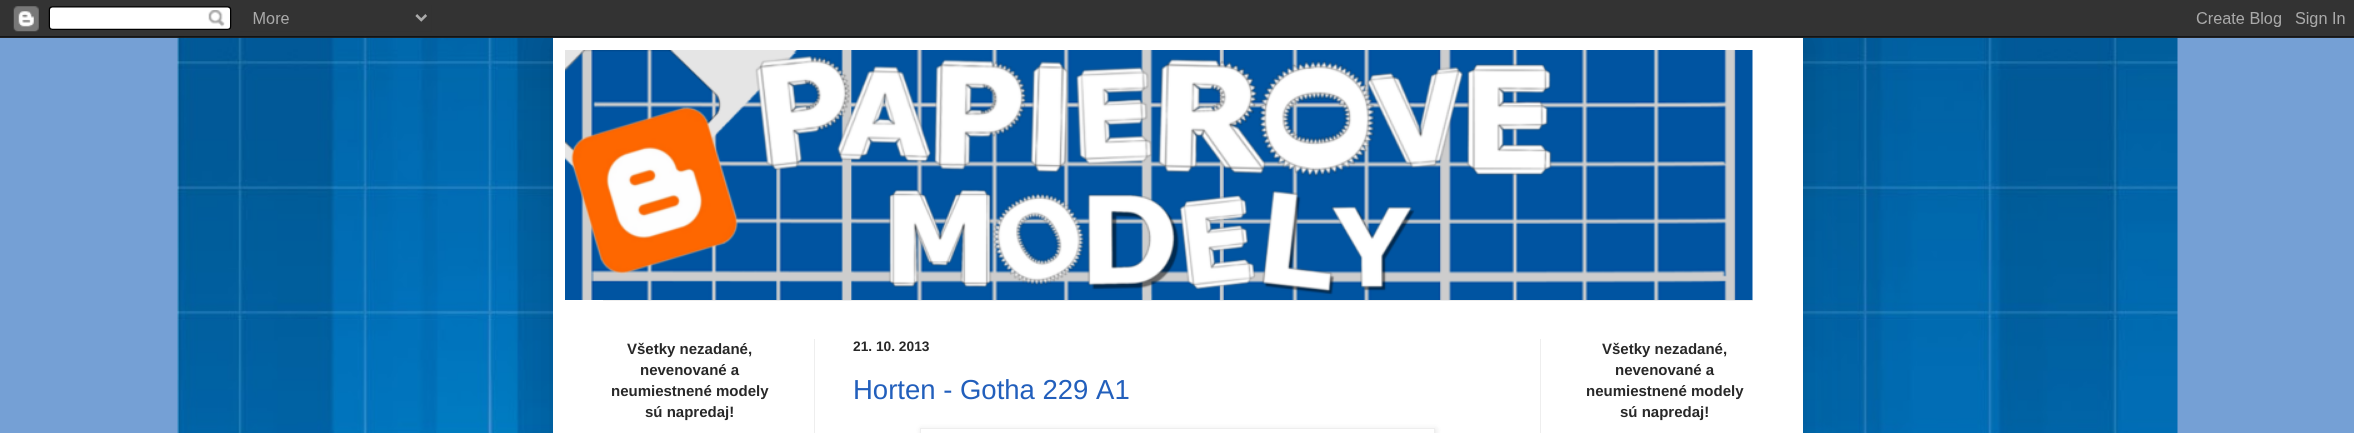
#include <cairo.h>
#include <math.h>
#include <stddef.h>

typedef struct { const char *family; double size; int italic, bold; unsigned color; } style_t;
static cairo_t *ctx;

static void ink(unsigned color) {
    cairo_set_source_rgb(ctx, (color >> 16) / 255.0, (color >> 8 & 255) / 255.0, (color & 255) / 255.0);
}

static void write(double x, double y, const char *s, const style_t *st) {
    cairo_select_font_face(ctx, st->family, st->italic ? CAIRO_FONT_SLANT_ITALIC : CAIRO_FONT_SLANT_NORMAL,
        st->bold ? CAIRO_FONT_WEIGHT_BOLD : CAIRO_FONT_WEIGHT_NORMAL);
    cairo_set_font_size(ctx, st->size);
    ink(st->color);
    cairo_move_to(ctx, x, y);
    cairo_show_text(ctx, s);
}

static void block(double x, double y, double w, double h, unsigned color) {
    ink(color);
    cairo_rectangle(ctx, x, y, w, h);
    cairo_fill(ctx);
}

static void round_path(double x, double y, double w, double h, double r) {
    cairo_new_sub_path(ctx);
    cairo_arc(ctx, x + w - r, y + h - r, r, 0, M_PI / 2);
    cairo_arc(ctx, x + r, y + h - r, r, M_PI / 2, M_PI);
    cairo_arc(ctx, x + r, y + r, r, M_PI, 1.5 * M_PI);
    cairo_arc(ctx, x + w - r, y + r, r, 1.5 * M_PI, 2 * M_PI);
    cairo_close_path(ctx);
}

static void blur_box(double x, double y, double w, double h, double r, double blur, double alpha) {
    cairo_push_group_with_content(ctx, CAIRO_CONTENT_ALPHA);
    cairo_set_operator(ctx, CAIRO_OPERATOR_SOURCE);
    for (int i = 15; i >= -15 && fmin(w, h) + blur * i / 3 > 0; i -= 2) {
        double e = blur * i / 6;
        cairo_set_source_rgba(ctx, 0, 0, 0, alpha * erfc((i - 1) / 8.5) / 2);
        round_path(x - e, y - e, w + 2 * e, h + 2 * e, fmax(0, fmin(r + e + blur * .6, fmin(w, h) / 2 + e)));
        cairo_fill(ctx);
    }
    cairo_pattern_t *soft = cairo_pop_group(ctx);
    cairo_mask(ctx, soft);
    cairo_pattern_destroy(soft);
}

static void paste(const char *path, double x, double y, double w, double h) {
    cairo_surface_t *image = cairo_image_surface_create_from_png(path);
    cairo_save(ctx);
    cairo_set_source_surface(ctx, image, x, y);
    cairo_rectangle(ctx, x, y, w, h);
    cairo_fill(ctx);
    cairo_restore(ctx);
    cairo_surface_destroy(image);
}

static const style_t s1 = {"Liberation Sans", 15, 0, 1, 0x282828};
static const style_t s2 = {"Liberation Sans", 13.75, 0, 1, 0x282828};
static const style_t s3 = {"Liberation Sans", 27.5, 0, 0, 0x225fbc};

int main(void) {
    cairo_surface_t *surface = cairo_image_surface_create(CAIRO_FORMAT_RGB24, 2354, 433);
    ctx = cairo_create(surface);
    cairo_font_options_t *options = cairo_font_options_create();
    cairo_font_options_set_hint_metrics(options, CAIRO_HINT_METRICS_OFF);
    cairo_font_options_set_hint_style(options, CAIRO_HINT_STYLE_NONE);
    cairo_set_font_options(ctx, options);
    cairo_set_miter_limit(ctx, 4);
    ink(0x75a0d5);
    cairo_paint(ctx);
    paste("pic1.png", 177, 36, 2001, 397);
    ink(0x000000);
    blur_box(553, 38, 1250, 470, 0, 25, 0.15);
    paste("pic2.png", 0, 0, 2354, 38);
    block(553, 38, 1250, 395, 0xffffff);
    paste("pic3.png", 565, 50, 1188, 250);
    block(603, 300, 1150, 1, 0xeeeeee);
    block(814, 339, 1, 94, 0xeeeeee);
    block(1540, 339, 1, 94, 0xeeeeee);
    write(627, 354, "Všetky nezadané,", &s1);
    write(640, 375, "nevenované a", &s1);
    write(611, 396, "neumiestnené modely", &s1);
    write(645, 417, "sú napredaj!", &s1);
    write(853, 351, "21. 10. 2013", &s2);
    write(853, 399, "Horten - Gotha 229 A1", &s3);
    cairo_save(ctx);
    cairo_set_fill_rule(ctx, CAIRO_FILL_RULE_EVEN_ODD);
    cairo_new_path(ctx);
    cairo_move_to(ctx, 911, 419);
    cairo_line_to(ctx, 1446, 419);
    cairo_line_to(ctx, 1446, 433);
    cairo_line_to(ctx, 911, 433);
    cairo_close_path(ctx);
    cairo_move_to(ctx, 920, 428);
    cairo_line_to(ctx, 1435, 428);
    cairo_line_to(ctx, 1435, 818);
    cairo_line_to(ctx, 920, 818);
    cairo_close_path(ctx);
    cairo_clip(ctx);
    ink(0x000000);
    blur_box(921, 429, 515, 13, 0, 3, 0.1);
    cairo_restore(ctx);
    cairo_rectangle(ctx, 920.5, 428.5, 514, 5);
    ink(0xeeeeee);
    cairo_set_line_width(ctx, 1);
    cairo_stroke(ctx);
    write(1602, 354, "Všetky nezadané,", &s1);
    write(1615, 375, "nevenované a", &s1);
    write(1586, 396, "neumiestnené modely", &s1);
    write(1620, 417, "sú napredaj!", &s1);
    cairo_surface_write_to_png(surface, "screenshot.png");
    cairo_font_options_destroy(options);
    cairo_destroy(ctx);
    cairo_surface_destroy(surface);
    return 0;
}
